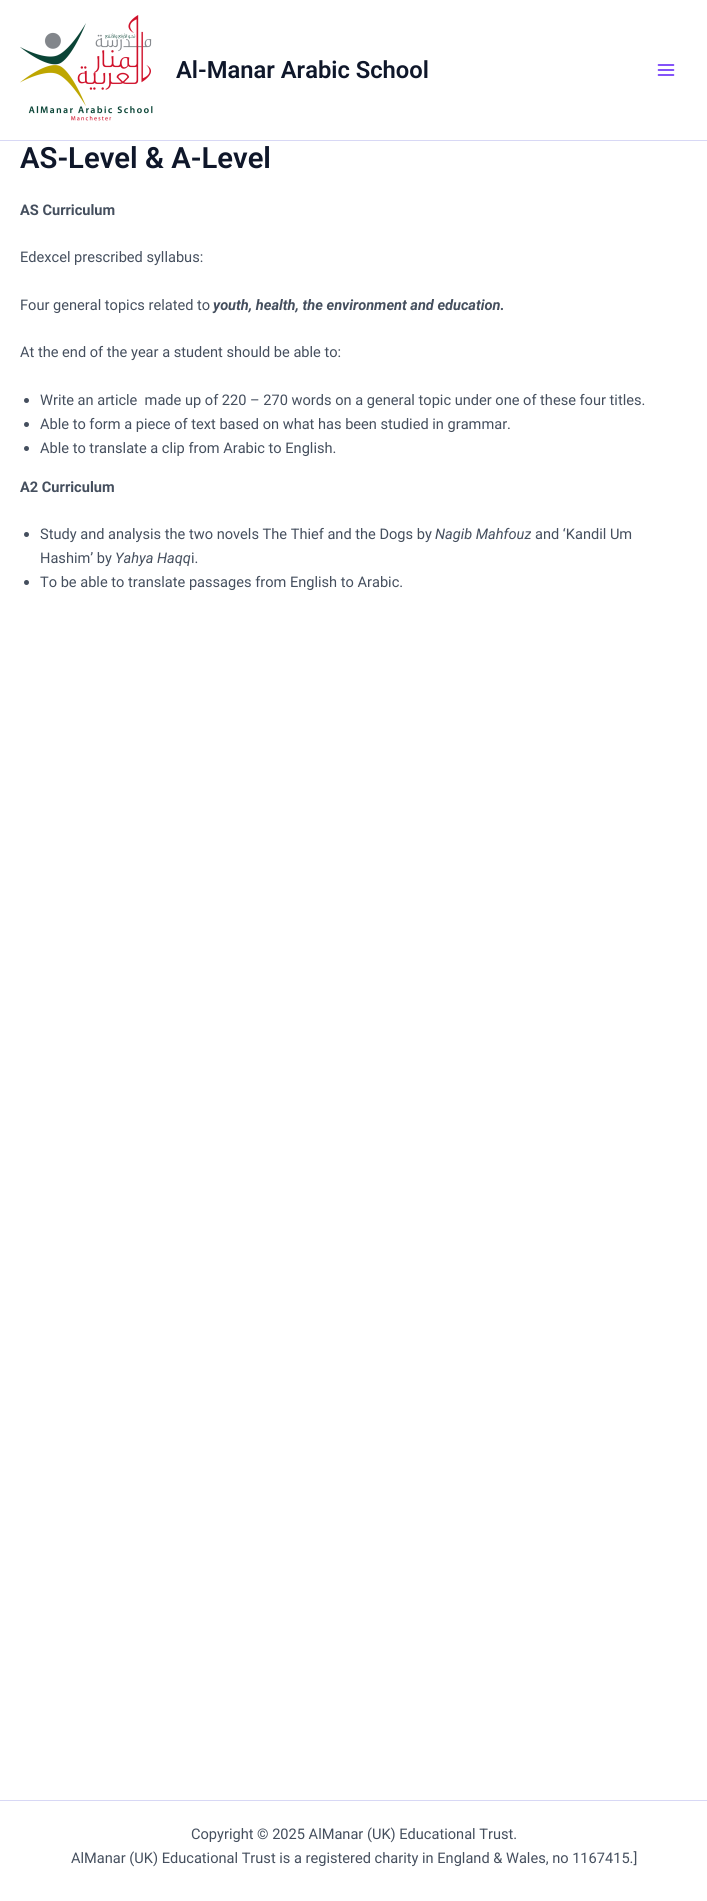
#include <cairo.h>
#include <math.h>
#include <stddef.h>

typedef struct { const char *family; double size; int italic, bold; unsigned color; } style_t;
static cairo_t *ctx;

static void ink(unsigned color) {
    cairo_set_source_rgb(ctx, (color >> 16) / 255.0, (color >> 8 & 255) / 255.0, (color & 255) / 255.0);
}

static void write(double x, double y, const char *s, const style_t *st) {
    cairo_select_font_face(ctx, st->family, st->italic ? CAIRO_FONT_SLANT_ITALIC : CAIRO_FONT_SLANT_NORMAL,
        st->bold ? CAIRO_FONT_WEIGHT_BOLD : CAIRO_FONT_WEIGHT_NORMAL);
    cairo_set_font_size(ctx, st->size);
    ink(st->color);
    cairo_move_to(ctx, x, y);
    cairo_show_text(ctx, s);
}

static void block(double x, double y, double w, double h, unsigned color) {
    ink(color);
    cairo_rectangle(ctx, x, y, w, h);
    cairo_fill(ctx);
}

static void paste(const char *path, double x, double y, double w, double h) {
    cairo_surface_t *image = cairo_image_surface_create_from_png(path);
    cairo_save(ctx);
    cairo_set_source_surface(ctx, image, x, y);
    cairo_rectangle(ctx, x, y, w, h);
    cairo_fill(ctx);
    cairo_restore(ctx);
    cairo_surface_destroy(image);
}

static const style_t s1 = {"Roboto SemiBold", 23.75, 0, 0, 0x0f172a};
static const style_t s2 = {"Roboto SemiBold", 29.25, 0, 0, 0x0f172a};
static const style_t s3 = {"Roboto", 14.6, 0, 1, 0x454f5e};
static const style_t s4 = {"Roboto", 14.6, 0, 0, 0x454f5e};
static const style_t s5 = {"Roboto", 14.6, 1, 1, 0x454f5e};
static const style_t s6 = {"Roboto", 14.6, 1, 0, 0x454f5e};

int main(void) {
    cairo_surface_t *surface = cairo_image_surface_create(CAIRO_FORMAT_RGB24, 707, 1901);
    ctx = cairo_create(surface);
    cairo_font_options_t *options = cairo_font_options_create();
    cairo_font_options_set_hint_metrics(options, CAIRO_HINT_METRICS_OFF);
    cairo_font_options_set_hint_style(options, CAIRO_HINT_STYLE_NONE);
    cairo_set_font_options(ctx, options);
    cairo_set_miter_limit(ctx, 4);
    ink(0xffffff);
    cairo_paint(ctx);
    block(0, 140, 707, 1, 0xd8d8f5);
    paste("pic1.png", 20, 15, 133, 106);
    write(176, 78, "Al-Manar Arabic School", &s1);
    paste("pic2.png", 657, 64, 18, 12);
    write(20, 168, "AS-Level & A-Level", &s2);
    write(20, 215, "AS Curriculum", &s3);
    write(20, 262, "Edexcel prescribed syllabus:", &s4);
    write(20, 310, "Four general topics related to", &s4);
    write(213, 310, "youth, health, the environment and education.", &s5);
    write(20, 357, "At the end of the year a student should be able to:", &s4);
    cairo_new_path(ctx);
    cairo_arc(ctx, 26.5, 400.5, 2.5, 0, 2 * M_PI);
    cairo_fill(ctx);
    write(40, 405, "Write an article  made up of 220 – 270 words on a general topic under one of these four titles.", &s4);
    cairo_new_path(ctx);
    cairo_arc(ctx, 26.5, 424.5, 2.5, 0, 2 * M_PI);
    cairo_fill(ctx);
    write(40, 429, "Able to form a piece of text based on what has been studied in grammar.", &s4);
    cairo_new_path(ctx);
    cairo_arc(ctx, 26.5, 448.5, 2.5, 0, 2 * M_PI);
    cairo_fill(ctx);
    write(40, 453, "Able to translate a clip from Arabic to English.", &s4);
    write(20, 492, "A2 Curriculum", &s3);
    cairo_new_path(ctx);
    cairo_arc(ctx, 26.5, 534.5, 2.5, 0, 2 * M_PI);
    cairo_fill(ctx);
    write(40, 539, "Study and analysis the two novels The Thief and the Dogs by", &s4);
    write(435, 539, "Nagib Mahfouz", &s6);
    write(535, 539, "and ‘Kandil Um", &s4);
    write(40, 563, "Hashim’ by", &s4);
    write(115, 563, "Yahya Haqq", &s6);
    write(191, 563, "i.", &s4);
    cairo_new_path(ctx);
    cairo_arc(ctx, 26.5, 582.5, 2.5, 0, 2 * M_PI);
    cairo_fill(ctx);
    write(40, 587, "To be able to translate passages from English to Arabic.", &s4);
    block(0, 1800, 707, 1, 0xd8d8f5);
    write(191, 1839, "Copyright © 2025 AlManar (UK) Educational Trust.", &s4);
    write(71, 1863, "AlManar (UK) Educational Trust is a registered charity in England & Wales, no 1167415.]", &s4);
    cairo_surface_write_to_png(surface, "screenshot.png");
    cairo_font_options_destroy(options);
    cairo_destroy(ctx);
    cairo_surface_destroy(surface);
    return 0;
}
